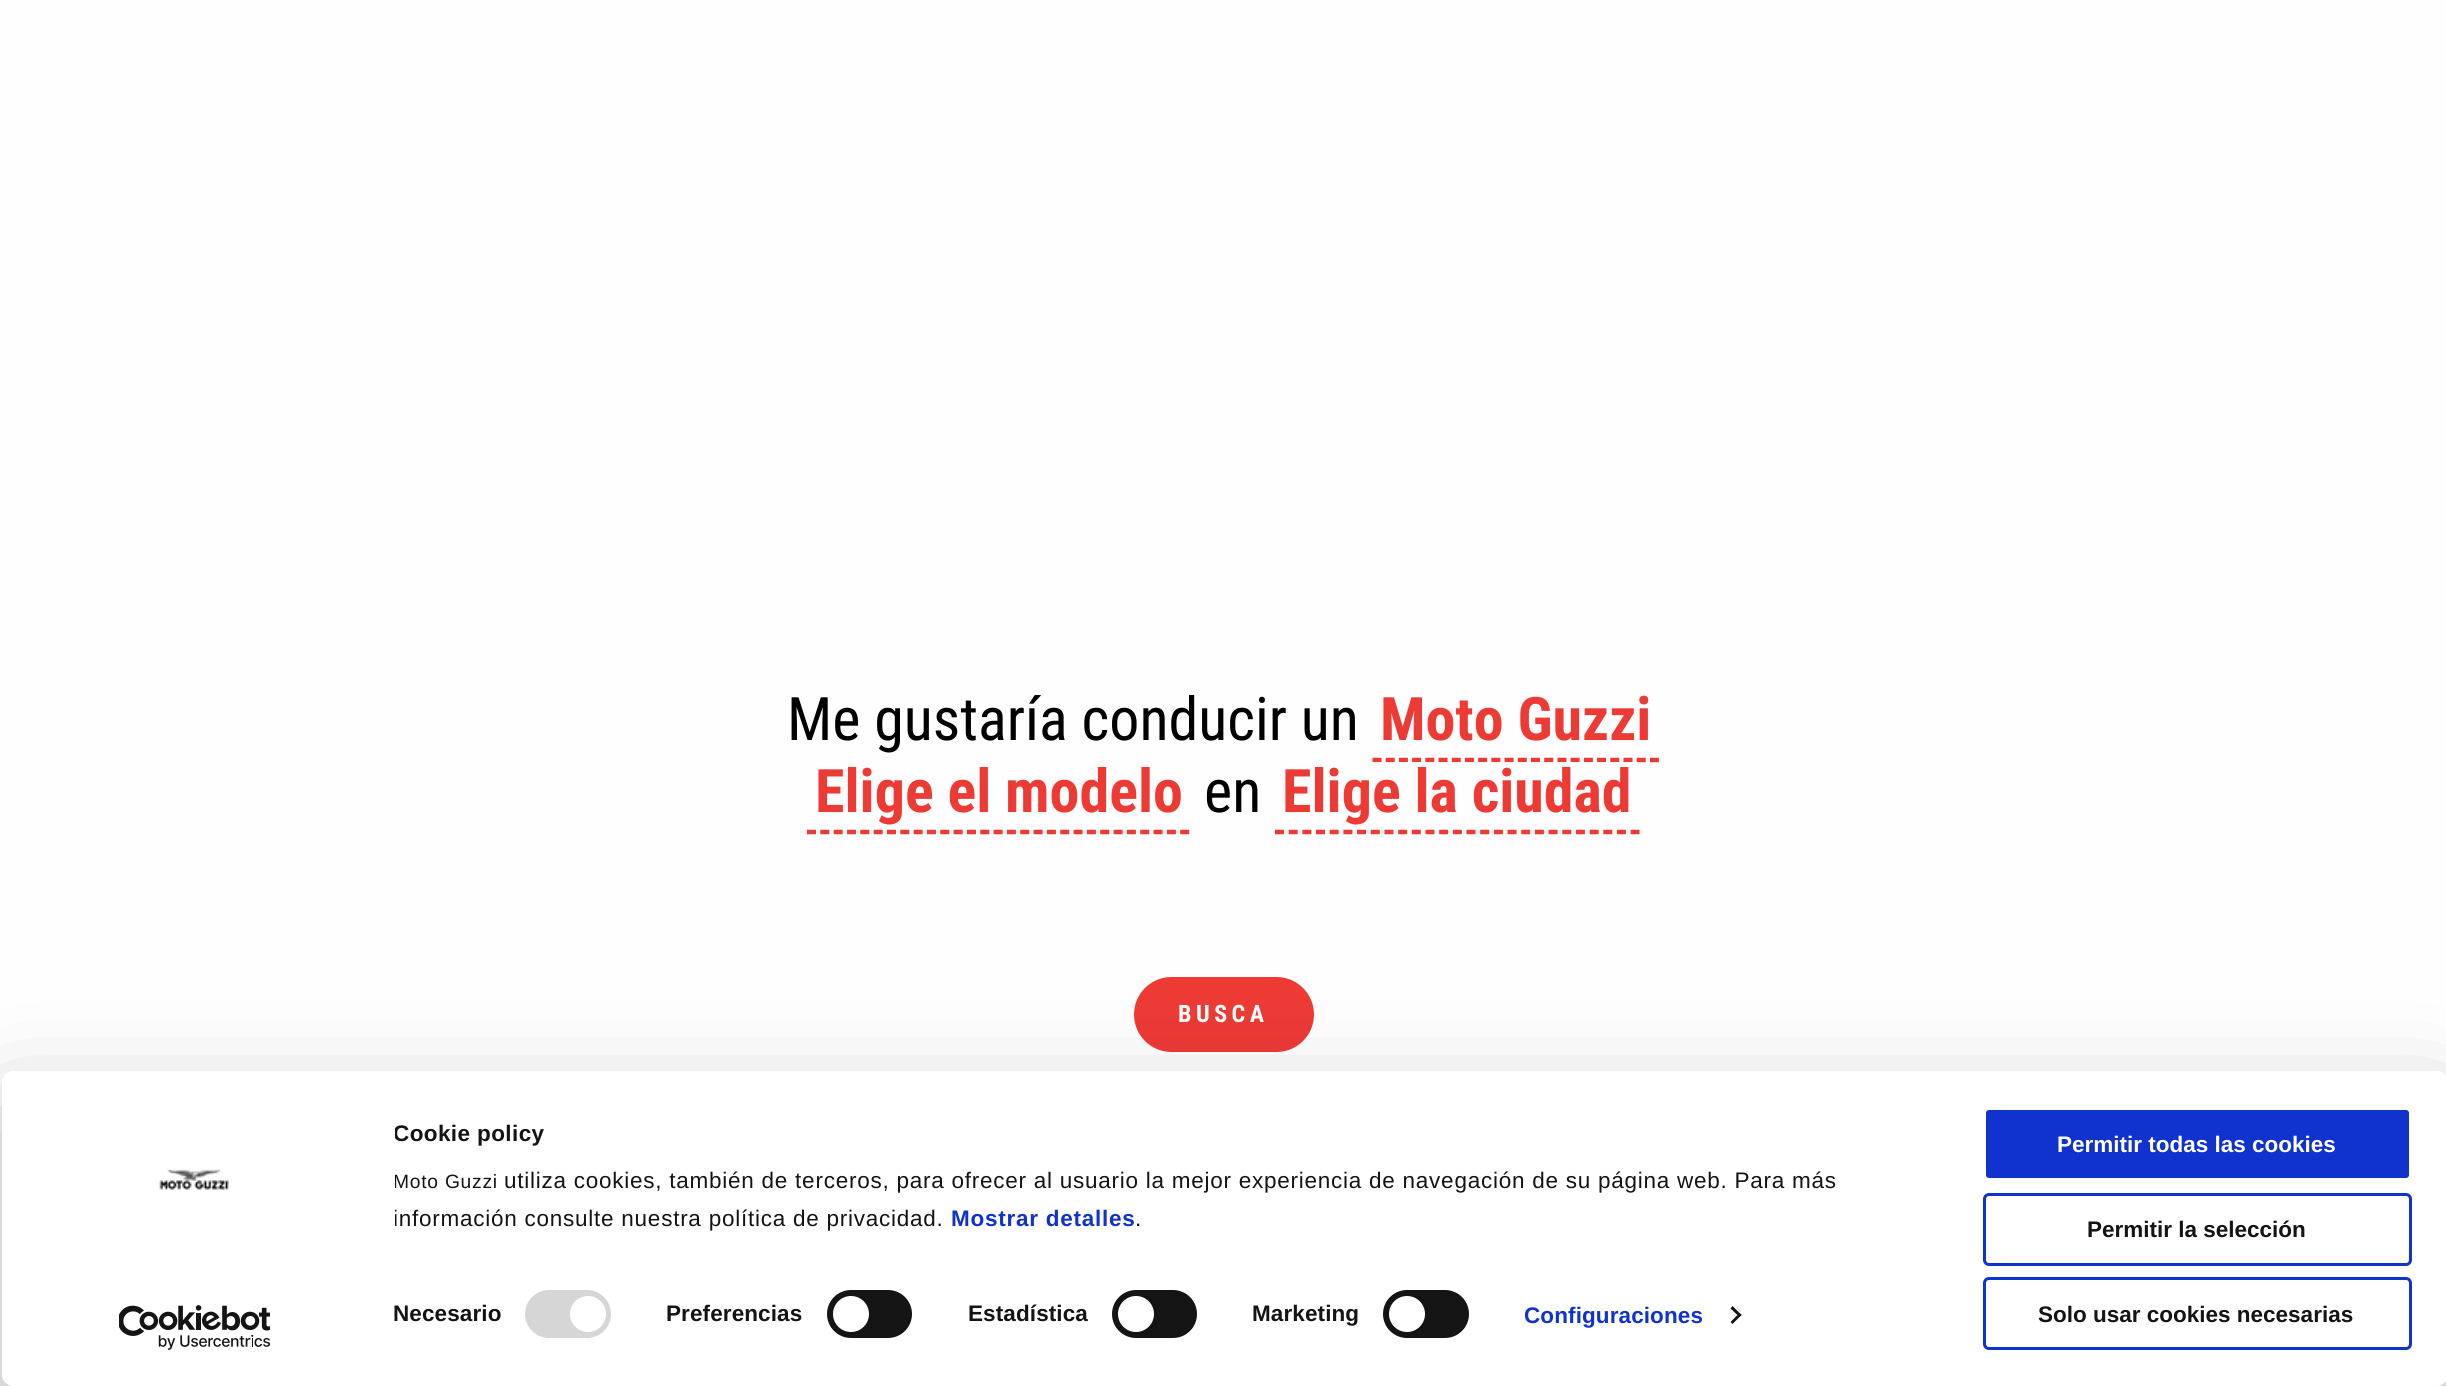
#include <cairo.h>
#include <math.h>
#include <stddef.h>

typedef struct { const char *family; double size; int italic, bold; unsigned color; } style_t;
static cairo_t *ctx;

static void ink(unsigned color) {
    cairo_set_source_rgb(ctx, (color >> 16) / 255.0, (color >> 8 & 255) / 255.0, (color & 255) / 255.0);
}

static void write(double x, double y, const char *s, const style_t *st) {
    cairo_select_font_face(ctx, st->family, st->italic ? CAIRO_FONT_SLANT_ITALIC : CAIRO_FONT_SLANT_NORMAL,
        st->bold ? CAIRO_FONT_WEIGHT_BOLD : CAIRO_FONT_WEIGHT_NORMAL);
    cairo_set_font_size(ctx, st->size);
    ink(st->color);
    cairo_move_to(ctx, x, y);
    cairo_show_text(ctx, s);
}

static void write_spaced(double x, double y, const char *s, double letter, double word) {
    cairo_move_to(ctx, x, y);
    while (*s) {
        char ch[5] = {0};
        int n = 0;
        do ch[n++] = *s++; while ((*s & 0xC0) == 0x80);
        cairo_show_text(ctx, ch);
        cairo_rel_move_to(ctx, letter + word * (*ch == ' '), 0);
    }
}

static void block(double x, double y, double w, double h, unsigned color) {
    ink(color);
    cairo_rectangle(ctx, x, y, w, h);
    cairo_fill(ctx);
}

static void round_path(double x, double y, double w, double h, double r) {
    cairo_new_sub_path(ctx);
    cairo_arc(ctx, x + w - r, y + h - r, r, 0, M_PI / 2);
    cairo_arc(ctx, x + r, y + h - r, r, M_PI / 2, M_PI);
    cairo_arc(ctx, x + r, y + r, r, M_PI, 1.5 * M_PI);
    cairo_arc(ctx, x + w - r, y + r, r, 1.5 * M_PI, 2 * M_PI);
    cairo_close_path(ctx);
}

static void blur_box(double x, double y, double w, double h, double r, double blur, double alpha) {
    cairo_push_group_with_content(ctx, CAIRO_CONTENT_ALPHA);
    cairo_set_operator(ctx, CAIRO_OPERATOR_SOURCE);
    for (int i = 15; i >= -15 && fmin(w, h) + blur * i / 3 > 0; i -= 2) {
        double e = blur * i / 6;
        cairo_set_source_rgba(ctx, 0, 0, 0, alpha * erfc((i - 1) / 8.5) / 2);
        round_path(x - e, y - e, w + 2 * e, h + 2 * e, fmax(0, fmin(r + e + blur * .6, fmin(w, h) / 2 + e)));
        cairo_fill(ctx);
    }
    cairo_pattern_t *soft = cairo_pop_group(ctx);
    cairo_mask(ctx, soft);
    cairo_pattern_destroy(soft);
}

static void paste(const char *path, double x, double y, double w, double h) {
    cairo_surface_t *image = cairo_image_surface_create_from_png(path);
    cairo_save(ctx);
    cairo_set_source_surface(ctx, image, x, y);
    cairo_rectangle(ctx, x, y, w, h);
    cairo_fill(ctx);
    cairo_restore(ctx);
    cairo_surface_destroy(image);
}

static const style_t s1 = {"Roboto Condensed", 60, 0, 0, 0x000000};
static const style_t s2 = {"Roboto Condensed", 60, 0, 1, 0xed3a35};
static const style_t s3 = {"Liberation Sans", 22.5, 0, 1, 0xffffff};
static const style_t s4 = {"Liberation Sans", 22.5, 0, 1, 0x141414};

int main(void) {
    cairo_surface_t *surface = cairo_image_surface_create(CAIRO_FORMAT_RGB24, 2446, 1386);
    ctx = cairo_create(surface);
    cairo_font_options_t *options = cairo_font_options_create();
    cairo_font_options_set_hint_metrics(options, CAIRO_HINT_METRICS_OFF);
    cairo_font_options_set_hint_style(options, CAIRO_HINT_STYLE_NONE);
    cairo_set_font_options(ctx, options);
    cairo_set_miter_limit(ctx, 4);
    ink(0xfefefe);
    cairo_paint(ctx);
    write(787, 740, "Me gustaría conducir un", &s1);
    cairo_new_path(ctx);
    cairo_move_to(ctx, 1372.5, 760);
    cairo_line_to(ctx, 1659, 760);
    ink(0xed3a35);
    cairo_set_line_width(ctx, 4.5);
    cairo_set_dash(ctx, (double[]){9, 4.21}, 2, 0);
    cairo_stroke(ctx);
    write(1380, 740, "Moto Guzzi", &s2);
    cairo_new_path(ctx);
    cairo_move_to(ctx, 807, 832);
    cairo_line_to(ctx, 1189.5, 832);
    cairo_set_dash(ctx, (double[]){9, 4.33}, 2, 0);
    cairo_stroke(ctx);
    write(815, 812, "Elige el modelo", &s2);
    write(1204, 812, "en", &s1);
    block(1372, 762, 268, 1, 0xffffff);
    cairo_new_path(ctx);
    cairo_move_to(ctx, 1275, 832);
    cairo_line_to(ctx, 1639.5, 832);
    ink(0xed3a35);
    cairo_set_dash(ctx, (double[]){9, 4.68}, 2, 0);
    cairo_stroke(ctx);
    write(1282, 812, "Elige la ciudad", &s2);
    round_path(1134, 977, 180, 75, 37.5);
    cairo_fill(ctx);
    cairo_set_font_size(ctx, 24);
    ink(0xffffff);
    write_spaced(1178, 1022, "BUSCA", 4.5, 0);
    cairo_save(ctx);
    cairo_set_fill_rule(ctx, CAIRO_FILL_RULE_EVEN_ODD);
    cairo_new_path(ctx);
    cairo_move_to(ctx, 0, 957);
    cairo_line_to(ctx, 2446, 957);
    cairo_line_to(ctx, 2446, 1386);
    cairo_line_to(ctx, 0, 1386);
    cairo_close_path(ctx);
    cairo_move_to(ctx, 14, 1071);
    cairo_line_to(ctx, 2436, 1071);
    cairo_curve_to(ctx, 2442.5, 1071, 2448, 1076.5, 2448, 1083);
    cairo_line_to(ctx, 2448, 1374);
    cairo_curve_to(ctx, 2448, 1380.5, 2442.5, 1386, 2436, 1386);
    cairo_line_to(ctx, 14, 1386);
    cairo_curve_to(ctx, 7.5, 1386, 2, 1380.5, 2, 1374);
    cairo_line_to(ctx, 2, 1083);
    cairo_curve_to(ctx, 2, 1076.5, 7.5, 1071, 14, 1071);
    cairo_close_path(ctx);
    cairo_clip(ctx);
    ink(0x000000);
    blur_box(2, 1116, 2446, 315, 12, 52.5, 0.3);
    cairo_restore(ctx);
    round_path(2, 1071, 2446, 315, 12);
    cairo_fill(ctx);
    paste("pic1.png", 159, 1168, 70, 22);
    paste("pic2.png", 119, 1305, 151, 45);
    cairo_save(ctx);
    cairo_rectangle(ctx, 395, 1116, 1545, 120);
    cairo_clip(ctx);
    cairo_select_font_face(ctx, "Liberation Sans", CAIRO_FONT_SLANT_NORMAL, CAIRO_FONT_WEIGHT_BOLD);
    cairo_set_font_size(ctx, 22.5);
    ink(0x141414);
    write_spaced(393, 1141, "Cookie policy", 0.4, 0);
    cairo_select_font_face(ctx, "Liberation Sans", CAIRO_FONT_SLANT_NORMAL, CAIRO_FONT_WEIGHT_NORMAL);
    cairo_set_font_size(ctx, 19.25);
    write_spaced(393, 1188, "Moto Guzzi", 0.75, 0);
    cairo_restore(ctx);
    cairo_select_font_face(ctx, "Liberation Sans", CAIRO_FONT_SLANT_NORMAL, CAIRO_FONT_WEIGHT_NORMAL);
    cairo_set_font_size(ctx, 22.5);
    ink(0x141414);
    write_spaced(504, 1188, "utiliza cookies, también de terceros, para ofrecer al usuario la mejor experiencia de navegación de su página web. Para más", 0.75, 0);
    cairo_save(ctx);
    cairo_rectangle(ctx, 395, 1116, 1545, 120);
    cairo_clip(ctx);
    write_spaced(393, 1226, "información consulte nuestra política de privacidad.", 0.75, 0);
    cairo_restore(ctx);
    cairo_select_font_face(ctx, "Liberation Sans", CAIRO_FONT_SLANT_NORMAL, CAIRO_FONT_WEIGHT_BOLD);
    ink(0x1032cf);
    write_spaced(951, 1226, "Mostrar detalles", 0.75, 0);
    cairo_select_font_face(ctx, "Liberation Sans", CAIRO_FONT_SLANT_NORMAL, CAIRO_FONT_WEIGHT_NORMAL);
    ink(0x141414);
    write_spaced(1135, 1226, ".", 0.75, 0);
    cairo_select_font_face(ctx, "Liberation Sans", CAIRO_FONT_SLANT_NORMAL, CAIRO_FONT_WEIGHT_BOLD);
    write_spaced(393, 1321, "Necesario", 0.1, 0);
    ink(0xd6d6d6);
    round_path(525, 1290, 86, 48, 24);
    cairo_fill(ctx);
    ink(0xffffff);
    cairo_arc(ctx, 588, 1314, 18, 0, 2 * M_PI);
    cairo_fill(ctx);
    ink(0x141414);
    write_spaced(666, 1321, "Preferencias", 0.1, 0);
    round_path(827, 1290, 85, 48, 24);
    cairo_fill(ctx);
    ink(0xffffff);
    cairo_arc(ctx, 851, 1314, 18, 0, 2 * M_PI);
    cairo_fill(ctx);
    ink(0x141414);
    write_spaced(968, 1321, "Estadística", 0.1, 0);
    round_path(1112, 1290, 85, 48, 24);
    cairo_fill(ctx);
    ink(0xffffff);
    cairo_arc(ctx, 1136, 1314, 18, 0, 2 * M_PI);
    cairo_fill(ctx);
    ink(0x141414);
    write_spaced(1252, 1321, "Marketing", 0.1, 0);
    round_path(1383, 1290, 86, 48, 24);
    cairo_fill(ctx);
    ink(0xffffff);
    cairo_arc(ctx, 1407, 1314, 18, 0, 2 * M_PI);
    cairo_fill(ctx);
    ink(0x1032cf);
    write_spaced(1524, 1323, "Configuraciones", 0.1, 0);
    ink(0x141414);
    cairo_new_path(ctx);
    cairo_move_to(ctx, 1732.5, 1306);
    cairo_line_to(ctx, 1741.5, 1315);
    cairo_line_to(ctx, 1739.5, 1317);
    cairo_line_to(ctx, 1730.5, 1308.5);
    cairo_close_path(ctx);
    cairo_fill(ctx);
    cairo_new_path(ctx);
    cairo_move_to(ctx, 1739.5, 1313);
    cairo_line_to(ctx, 1741.5, 1315);
    cairo_line_to(ctx, 1732.5, 1324);
    cairo_line_to(ctx, 1730.5, 1322);
    cairo_close_path(ctx);
    cairo_fill(ctx);
    ink(0x1032cf);
    round_path(1984.5, 1108.5, 426, 71, 4.5);
    cairo_fill_preserve(ctx);
    ink(0xffffff);
    cairo_set_line_width(ctx, 3);
    cairo_set_dash(ctx, NULL, 0, 0);
    cairo_stroke(ctx);
    write(2057, 1152, "Permitir todas las cookies", &s3);
    round_path(1984.5, 1194.5, 426, 70, 4.5);
    ink(0x1032cf);
    cairo_stroke(ctx);
    write(2087, 1237, "Permitir la selección", &s4);
    round_path(1984.5, 1278.5, 426, 70, 4.5);
    ink(0x1032cf);
    cairo_stroke(ctx);
    write(2038, 1322, "Solo usar cookies necesarias", &s4);
    cairo_surface_write_to_png(surface, "screenshot.png");
    cairo_font_options_destroy(options);
    cairo_destroy(ctx);
    cairo_surface_destroy(surface);
    return 0;
}
